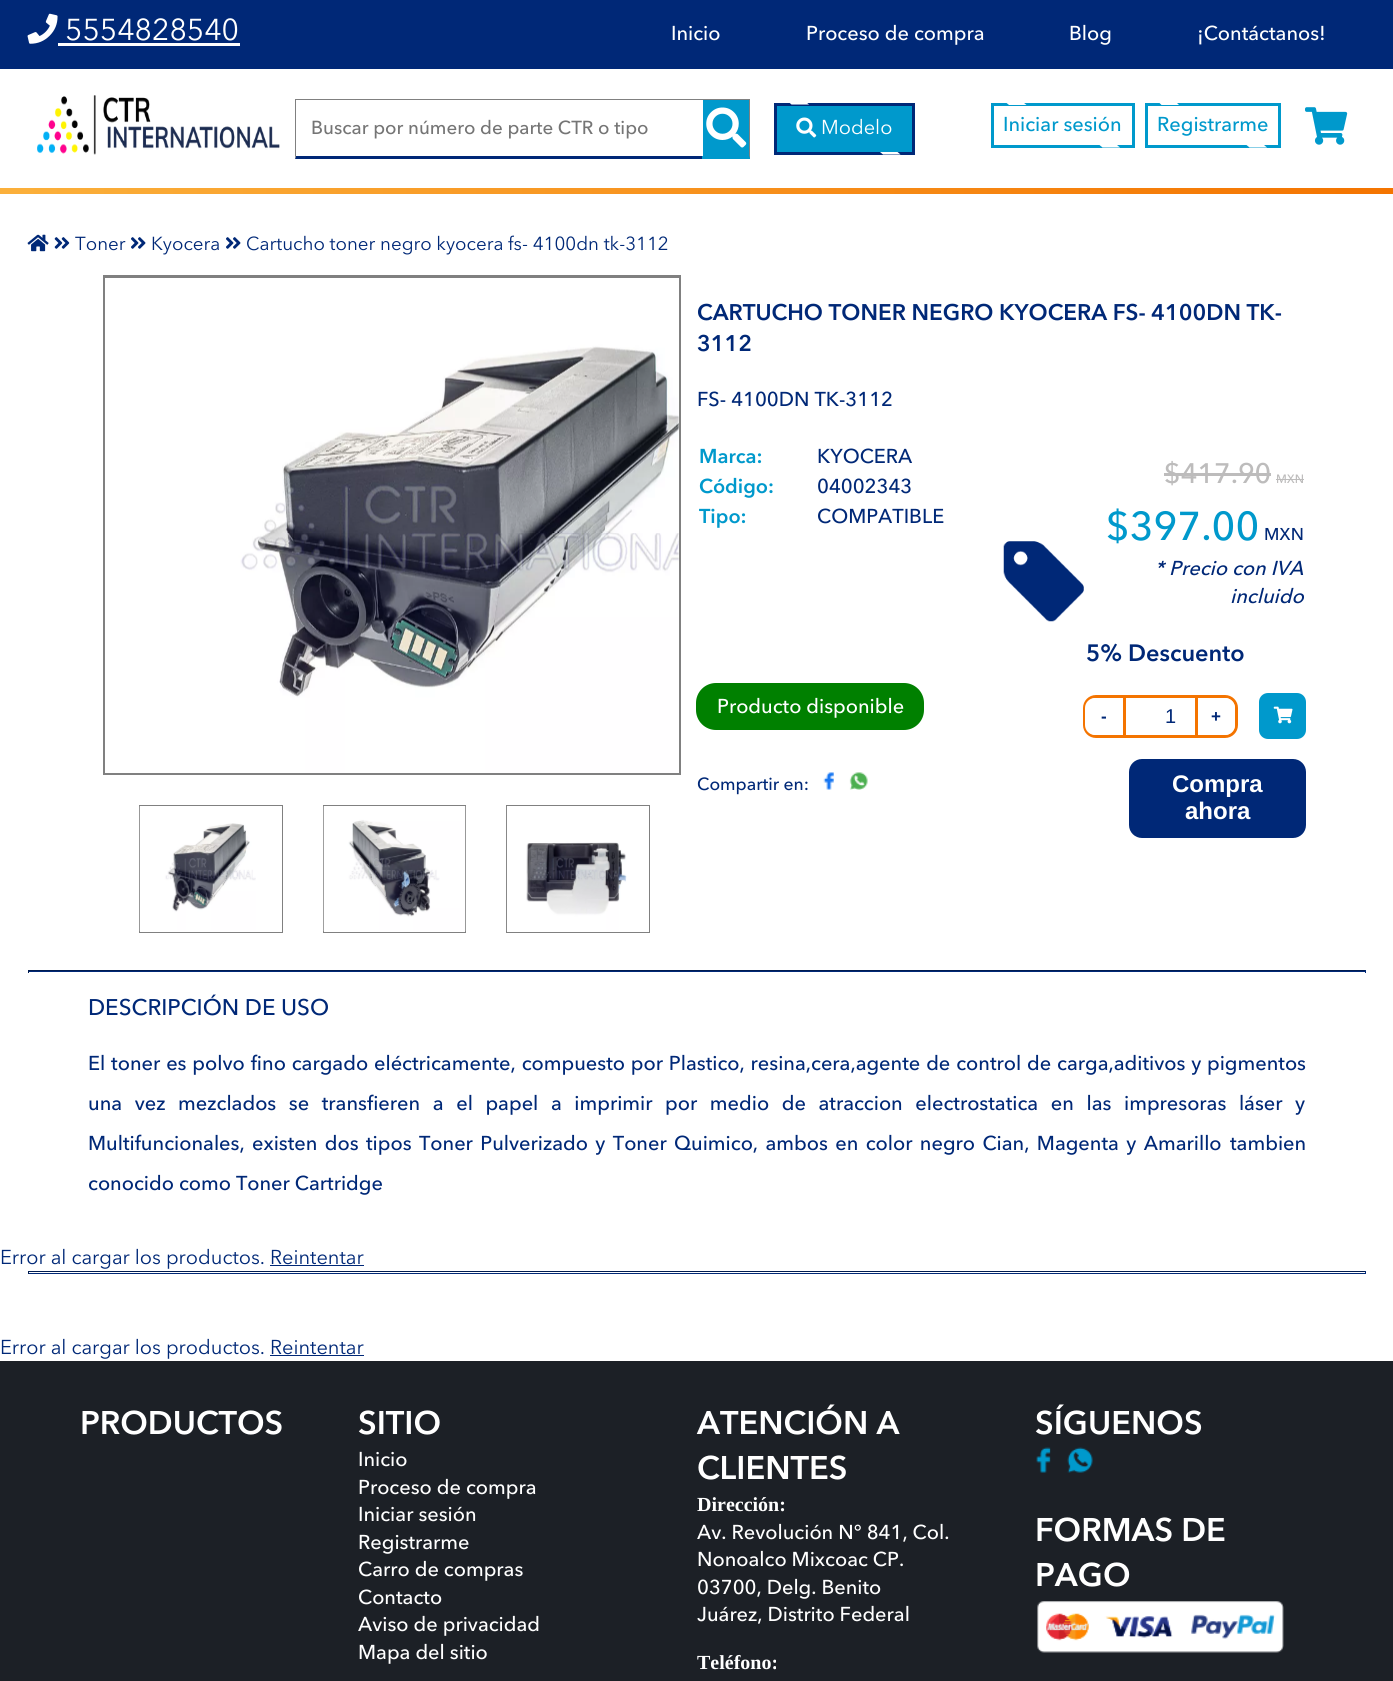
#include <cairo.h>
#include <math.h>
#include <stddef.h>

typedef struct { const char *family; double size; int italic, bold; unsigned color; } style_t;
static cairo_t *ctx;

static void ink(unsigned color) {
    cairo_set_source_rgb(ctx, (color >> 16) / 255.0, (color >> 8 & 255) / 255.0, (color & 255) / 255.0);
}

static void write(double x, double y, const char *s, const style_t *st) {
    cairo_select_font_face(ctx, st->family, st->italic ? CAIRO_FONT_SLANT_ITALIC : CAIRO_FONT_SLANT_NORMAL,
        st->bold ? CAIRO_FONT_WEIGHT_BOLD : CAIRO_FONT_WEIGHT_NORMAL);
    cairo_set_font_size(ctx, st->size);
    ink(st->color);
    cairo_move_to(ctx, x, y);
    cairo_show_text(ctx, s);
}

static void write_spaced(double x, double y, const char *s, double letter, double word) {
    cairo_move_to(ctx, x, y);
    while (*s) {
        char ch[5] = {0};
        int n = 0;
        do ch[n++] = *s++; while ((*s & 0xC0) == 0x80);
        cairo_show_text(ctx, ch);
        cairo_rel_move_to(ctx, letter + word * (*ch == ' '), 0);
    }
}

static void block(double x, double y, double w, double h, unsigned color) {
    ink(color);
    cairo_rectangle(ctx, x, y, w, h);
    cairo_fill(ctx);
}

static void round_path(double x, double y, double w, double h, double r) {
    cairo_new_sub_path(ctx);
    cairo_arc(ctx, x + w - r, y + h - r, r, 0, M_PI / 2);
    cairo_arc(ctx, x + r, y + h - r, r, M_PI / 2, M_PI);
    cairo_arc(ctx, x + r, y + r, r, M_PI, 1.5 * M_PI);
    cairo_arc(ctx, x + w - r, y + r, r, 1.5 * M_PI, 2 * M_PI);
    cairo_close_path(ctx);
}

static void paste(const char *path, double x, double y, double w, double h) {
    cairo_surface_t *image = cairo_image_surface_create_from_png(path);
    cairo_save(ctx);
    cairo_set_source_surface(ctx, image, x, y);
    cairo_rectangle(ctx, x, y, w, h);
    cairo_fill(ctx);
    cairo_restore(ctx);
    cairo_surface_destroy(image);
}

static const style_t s1 = {"Avenir Next", 30, 0, 0, 0xffffff};
static const style_t s2 = {"Avenir Next Medium", 20, 0, 0, 0xffffff};
static const style_t s3 = {"Avenir Next Medium", 18.75, 0, 0, 0x757575};
static const style_t s4 = {"Avenir Next", 20, 0, 0, 0xffffff};
static const style_t s5 = {"Avenir Next Medium", 20, 0, 0, 0x0099cc};
static const style_t s6 = {"Avenir Next", 18.75, 0, 0, 0x002877};
static const style_t s7 = {"Avenir Next SemiBold", 22.5, 0, 0, 0x002877};
static const style_t s8 = {"Avenir Next Medium", 20, 0, 0, 0x002877};
static const style_t s9 = {"Avenir Next SemiBold", 20, 0, 0, 0x0099cc};
static const style_t s10 = {"Avenir Next Medium", 28, 0, 0, 0xbdbcbc};
static const style_t s11 = {"Avenir Next Medium", 12, 0, 0, 0xbdbcbc};
static const style_t s12 = {"Avenir Next Medium", 40, 0, 0, 0x0099cc};
static const style_t s13 = {"Avenir Next Medium", 17, 0, 0, 0x002877};
static const style_t s14 = {"Avenir Next Medium", 20, 1, 0, 0x002877};
static const style_t s15 = {"Avenir Next SemiBold", 23.5, 0, 0, 0x002877};
static const style_t s16 = {"Avenir Next Medium", 17.5, 0, 0, 0x002877};
static const style_t s17 = {"Liberation Sans", 17, 0, 1, 0x002877};
static const style_t s18 = {"Liberation Sans", 20, 0, 0, 0x002877};
static const style_t s19 = {"Liberation Sans", 24, 0, 1, 0xffffff};
static const style_t s20 = {"Avenir Next Medium", 22.5, 0, 0, 0x002877};
static const style_t s21 = {"Avenir Next", 20, 0, 0, 0x002877};
static const style_t s22 = {"Avenir Next SemiBold", 32.5, 0, 0, 0xffffff};
static const style_t s23 = {"Liberation Serif", 20, 0, 1, 0xffffff};

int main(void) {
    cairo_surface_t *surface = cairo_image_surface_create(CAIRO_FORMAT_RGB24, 1393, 1681);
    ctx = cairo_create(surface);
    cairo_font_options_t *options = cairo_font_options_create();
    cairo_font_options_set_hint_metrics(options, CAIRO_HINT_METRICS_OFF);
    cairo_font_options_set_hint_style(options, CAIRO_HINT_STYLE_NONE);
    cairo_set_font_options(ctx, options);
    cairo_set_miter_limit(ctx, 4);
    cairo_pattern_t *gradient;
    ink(0xffffff);
    cairo_paint(ctx);
    block(0, 0, 1393, 69, 0x002877);
    paste("pic1.png", 27, 13, 31, 31);
    write(65, 40, "5554828540", &s1);
    block(58, 43, 182, 3, 0xffffff);
    write(671, 40, "Inicio", &s2);
    write(806, 40, "Proceso de compra", &s2);
    write(1069, 40, "Blog", &s2);
    write(1197, 40, "¡Contáctanos!", &s2);
    paste("pic2.png", 37, 95, 243, 60);
    block(295, 99, 455, 1, 0x808080);
    ink(0x002877);
    cairo_new_path(ctx);
    cairo_move_to(ctx, 702, 159);
    cairo_line_to(ctx, 295, 159);
    cairo_line_to(ctx, 296, 156);
    cairo_line_to(ctx, 702, 156);
    cairo_close_path(ctx);
    cairo_fill(ctx);
    ink(0x808080);
    cairo_new_path(ctx);
    cairo_move_to(ctx, 295, 159);
    cairo_line_to(ctx, 295, 99);
    cairo_line_to(ctx, 296, 100);
    cairo_line_to(ctx, 296, 156);
    cairo_close_path(ctx);
    cairo_fill(ctx);
    write(311, 134, "Buscar por número de parte CTR o tipo", &s3);
    block(703, 100, 47, 59, 0x0099cc);
    ink(0x808080);
    cairo_new_path(ctx);
    cairo_move_to(ctx, 750, 99);
    cairo_line_to(ctx, 750, 159);
    cairo_line_to(ctx, 749, 156);
    cairo_line_to(ctx, 749, 100);
    cairo_close_path(ctx);
    cairo_fill(ctx);
    ink(0x0099cc);
    cairo_new_path(ctx);
    cairo_move_to(ctx, 750, 159);
    cairo_line_to(ctx, 702, 159);
    cairo_line_to(ctx, 702, 156);
    cairo_line_to(ctx, 749, 156);
    cairo_close_path(ctx);
    cairo_fill(ctx);
    paste("pic3.png", 706, 107, 41, 41);
    cairo_rectangle(ctx, 775.5, 104.5, 138, 49);
    cairo_fill_preserve(ctx);
    ink(0x002877);
    cairo_set_line_width(ctx, 3);
    cairo_stroke(ctx);
    ink(0xffffff);
    cairo_new_path(ctx);
    cairo_move_to(ctx, 788.5, 102);
    cairo_line_to(ctx, 806, 102);
    cairo_line_to(ctx, 809, 104.5);
    cairo_line_to(ctx, 791.5, 104.5);
    cairo_close_path(ctx);
    cairo_fill(ctx);
    paste("pic4.png", 796, 117, 21, 21);
    write(821, 134, "Modelo", &s4);
    cairo_new_path(ctx);
    cairo_move_to(ctx, 880, 152);
    cairo_line_to(ctx, 897.5, 152);
    cairo_line_to(ctx, 900.5, 154.5);
    cairo_line_to(ctx, 883, 154.5);
    cairo_close_path(ctx);
    cairo_fill(ctx);
    cairo_rectangle(ctx, 992.5, 104.5, 141, 42);
    ink(0x0099cc);
    cairo_stroke(ctx);
    ink(0xffffff);
    cairo_new_path(ctx);
    cairo_move_to(ctx, 1006, 102.5);
    cairo_line_to(ctx, 1023.5, 102.5);
    cairo_line_to(ctx, 1026.5, 105);
    cairo_line_to(ctx, 1009, 105);
    cairo_close_path(ctx);
    cairo_fill(ctx);
    write(1003, 131, "Iniciar sesión", &s5);
    ink(0xffffff);
    cairo_new_path(ctx);
    cairo_move_to(ctx, 1099.5, 145);
    cairo_line_to(ctx, 1117, 145);
    cairo_line_to(ctx, 1120, 147.5);
    cairo_line_to(ctx, 1102.5, 147.5);
    cairo_close_path(ctx);
    cairo_fill(ctx);
    cairo_rectangle(ctx, 1146.5, 104.5, 133, 42);
    ink(0x0099cc);
    cairo_stroke(ctx);
    ink(0xffffff);
    cairo_new_path(ctx);
    cairo_move_to(ctx, 1159, 102.5);
    cairo_line_to(ctx, 1176.5, 102.5);
    cairo_line_to(ctx, 1179, 105);
    cairo_line_to(ctx, 1161.5, 105);
    cairo_close_path(ctx);
    cairo_fill(ctx);
    write(1157, 131, "Registrarme", &s5);
    ink(0xffffff);
    cairo_new_path(ctx);
    cairo_move_to(ctx, 1246.5, 145);
    cairo_line_to(ctx, 1264, 145);
    cairo_line_to(ctx, 1267, 147.5);
    cairo_line_to(ctx, 1249.5, 147.5);
    cairo_close_path(ctx);
    cairo_fill(ctx);
    paste("pic5.png", 1305, 107, 43, 38);
    gradient = cairo_pattern_create_linear(0, 191, 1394, 191);
    cairo_pattern_add_color_stop_rgba(gradient, 0, 0.984, 0.69, 0.231, 1);
    cairo_pattern_add_color_stop_rgba(gradient, 1, 0.957, 0.455, 0, 1);
    cairo_set_source(ctx, gradient);
    cairo_pattern_destroy(gradient);
    cairo_rectangle(ctx, 0, 188, 1393, 6);
    cairo_fill(ctx);
    paste("pic6.png", 27, 234, 22, 18);
    paste("pic7.png", 54, 237, 16, 12);
    write(75, 250, "Toner", &s6);
    paste("pic8.png", 131, 237, 15, 12);
    write(151, 250, "Kyocera", &s6);
    paste("pic8.png", 226, 237, 15, 12);
    write(246, 250, "Cartucho toner negro kyocera fs- 4100dn tk-3112", &s6);
    cairo_rectangle(ctx, 104.5, 276.5, 575, 497);
    ink(0x808080);
    cairo_stroke(ctx);
    paste("pic9.png", 105, 278, 574, 495);
    cairo_set_source_rgba(ctx, 1, 1, 1, 0.38);
    cairo_rectangle(ctx, 678, 416, 1, 144);
    cairo_fill(ctx);
    cairo_rectangle(ctx, 139.5, 805.5, 143, 127);
    ink(0x808080);
    cairo_set_line_width(ctx, 1);
    cairo_stroke(ctx);
    paste("pic10.png", 139, 806, 117, 126);
    cairo_rectangle(ctx, 323.5, 805.5, 142, 127);
    cairo_stroke(ctx);
    paste("pic11.png", 323, 806, 143, 126);
    cairo_rectangle(ctx, 506.5, 805.5, 143, 127);
    cairo_stroke(ctx);
    paste("pic12.png", 506, 806, 121, 125);
    write(697, 320, "CARTUCHO TONER NEGRO KYOCERA FS- 4100DN TK-", &s7);
    write(697, 351, "3112", &s7);
    write(697, 406, "FS- 4100DN TK-3112", &s8);
    write(699, 463, "Marca:", &s9);
    write(817, 463, "KYOCERA", &s8);
    write(699, 493, "Código:", &s9);
    write(817, 493, "04002343", &s8);
    write(699, 523, "Tipo:", &s9);
    write(817, 523, "COMPATIBLE", &s8);
    write(1164, 483, "$417.90", &s10);
    block(1164, 473, 107, 3, 0xbdbcbc);
    write(1276, 483, "MXN", &s11);
    block(1276, 479, 28, 1, 0xbdbcbc);
    paste("pic13.png", 1003, 541, 81, 81);
    write(1106, 540, "$397.00", &s12);
    write(1264, 540, "MXN", &s13);
    write(1155, 575, "* Precio con IVA", &s14);
    write(1230, 603, "incluido", &s14);
    write(1086, 661, "5% Descuento", &s15);
    ink(0x008000);
    round_path(696, 683, 228, 47, 20);
    cairo_fill(ctx);
    write(717, 713, "Producto disponible", &s2);
    write(697, 790, "Compartir en:", &s16);
    paste("pic14.png", 823, 772, 11, 18);
    paste("pic15.png", 849, 772, 19, 18);
    round_path(1084.5, 696.5, 152, 40, 11.5);
    ink(0xf47400);
    cairo_set_line_width(ctx, 3);
    cairo_stroke(ctx);
    ink(0xffffff);
    cairo_new_path(ctx);
    cairo_move_to(ctx, 1095, 698);
    cairo_line_to(ctx, 1123, 698);
    cairo_line_to(ctx, 1123, 735);
    cairo_line_to(ctx, 1095, 735);
    cairo_curve_to(ctx, 1089.5, 735, 1085, 730.5, 1085, 725);
    cairo_line_to(ctx, 1085, 708);
    cairo_curve_to(ctx, 1085, 702.5, 1089.5, 698, 1095, 698);
    cairo_close_path(ctx);
    cairo_fill(ctx);
    write(1101, 722, "-", &s17);
    block(1195, 698, 3, 37, 0xf47400);
    block(1123, 698, 3, 37, 0xf47400);
    write(1165, 723, "1", &s18);
    ink(0xffffff);
    cairo_new_path(ctx);
    cairo_move_to(ctx, 1198, 698);
    cairo_line_to(ctx, 1225, 698);
    cairo_curve_to(ctx, 1230.5, 698, 1235, 702.5, 1235, 708);
    cairo_line_to(ctx, 1235, 725);
    cairo_curve_to(ctx, 1235, 730.5, 1230.5, 735, 1225, 735);
    cairo_line_to(ctx, 1198, 735);
    cairo_close_path(ctx);
    cairo_fill(ctx);
    write(1211, 722, "+", &s17);
    ink(0x0099cc);
    round_path(1260.5, 694.5, 44, 43, 7.5);
    cairo_fill_preserve(ctx);
    cairo_stroke(ctx);
    paste("pic16.png", 1273, 706, 20, 18);
    ink(0x002877);
    round_path(1129, 759, 177, 79, 13);
    cairo_fill(ctx);
    write(1172, 792, "Compra", &s19);
    write(1185, 819, "ahora", &s19);
    block(28, 970, 1338, 1, 0x001b4f);
    block(1365, 970, 1, 3, 0x002877);
    block(28, 971, 1338, 1, 0x002877);
    block(28, 970, 1, 3, 0x001b4f);
    write(88, 1015, "DESCRIPCIÓN DE USO", &s20);
    cairo_set_font_size(ctx, 20);
    write_spaced(88, 1070, "El toner es polvo fino cargado eléctricamente, compuesto por Plastico, resina,cera,agente de control de carga,aditivos y", 0, 0.9);
    write(1207, 1070, "pigmentos", &s8);
    write_spaced(88, 1110, "una vez mezclados se transfieren a el papel a imprimir por medio de atraccion electrostatica en las impresoras láser y", 0, 7.6);
    write_spaced(88, 1150, "Multifuncionales, existen dos tipos Toner Pulverizado y Toner Quimico, ambos en color negro Cian, Magenta y Amarillo", 0, 2.4);
    write(1230, 1150, "tambien", &s8);
    write(88, 1190, "conocido como Toner Cartridge", &s8);
    write(0, 1264, "Error al cargar los productos. Reintentar", &s21);
    block(270, 1265, 94, 1, 0x002877);
    block(28, 1271, 1338, 1, 0x001b4f);
    block(1365, 1271, 1, 3, 0x002877);
    block(28, 1273, 1338, 1, 0x002877);
    block(28, 1271, 1, 3, 0x001b4f);
    write(0, 1354, "Error al cargar los productos. Reintentar", &s21);
    block(270, 1355, 94, 1, 0x002877);
    block(0, 1361, 1393, 320, 0x1c2026);
    write(80, 1434, "PRODUCTOS", &s22);
    write(358, 1434, "SITIO", &s22);
    write(358, 1466, "Inicio", &s2);
    write(358, 1494, "Proceso de compra", &s2);
    write(358, 1521, "Iniciar sesión", &s2);
    write(358, 1549, "Registrarme", &s2);
    write(358, 1576, "Carro de compras", &s2);
    write(358, 1604, "Contacto", &s2);
    write(358, 1631, "Aviso de privacidad", &s2);
    write(358, 1659, "Mapa del sitio", &s2);
    write(697, 1434, "ATENCIÓN A", &s22);
    write(697, 1479, "CLIENTES", &s22);
    write(697, 1511, "Dirección:", &s23);
    write(697, 1539, "Av. Revolución N° 841, Col.", &s2);
    write(697, 1566, "Nonoalco Mixcoac CP.", &s2);
    write(697, 1594, "03700, Delg. Benito", &s2);
    write(697, 1621, "Juárez, Distrito Federal", &s2);
    write(697, 1669, "Teléfono:", &s23);
    write(1035, 1434, "SÍGUENOS", &s22);
    paste("pic17.png", 1036, 1447, 15, 26);
    paste("pic18.png", 1067, 1447, 26, 26);
    write(1035, 1541, "FORMAS DE", &s22);
    write(1035, 1586, "PAGO", &s22);
    paste("pic19.png", 1037, 1601, 247, 52);
    cairo_surface_write_to_png(surface, "screenshot.png");
    cairo_font_options_destroy(options);
    cairo_destroy(ctx);
    cairo_surface_destroy(surface);
    return 0;
}
